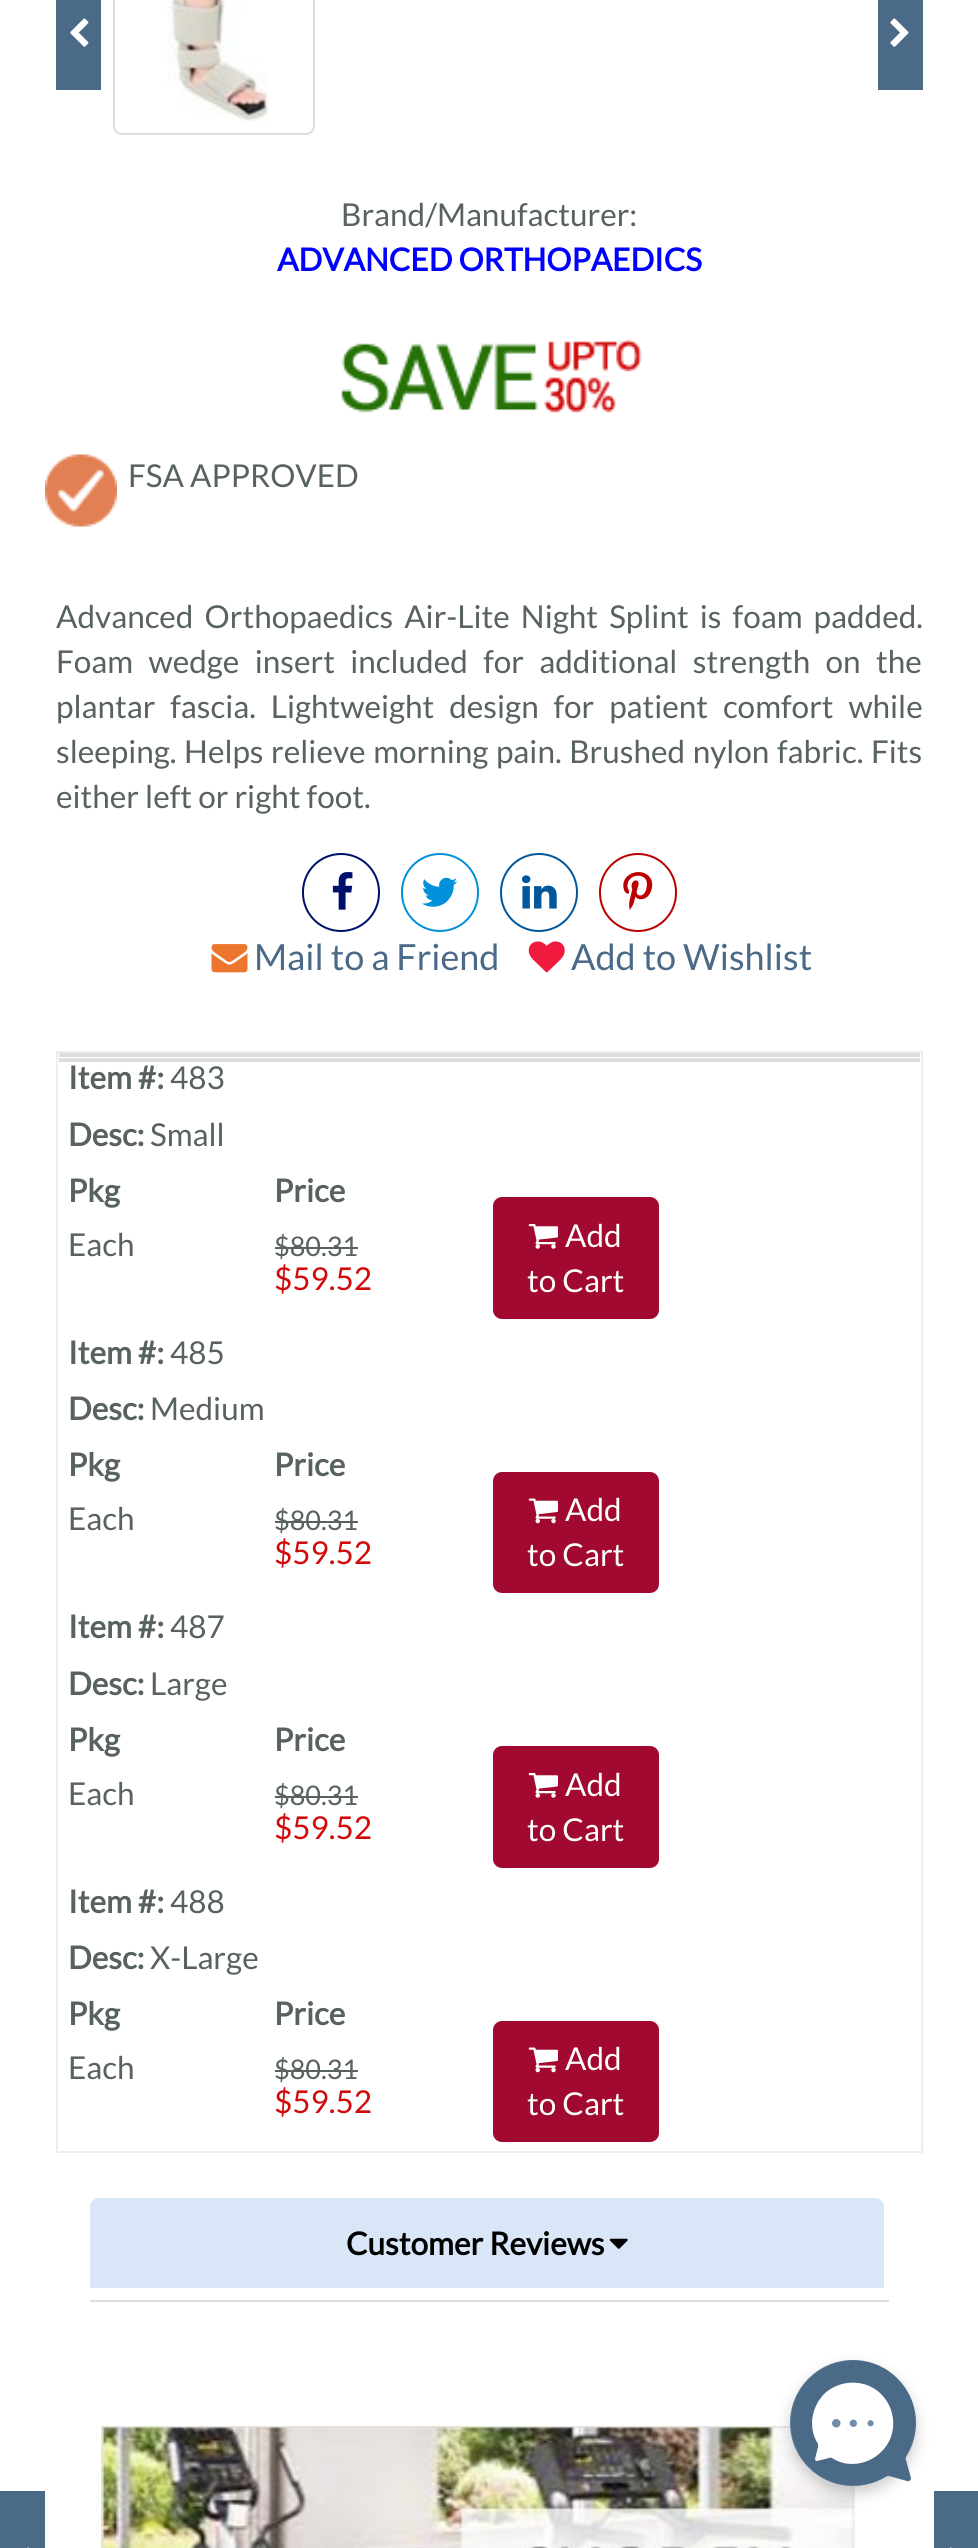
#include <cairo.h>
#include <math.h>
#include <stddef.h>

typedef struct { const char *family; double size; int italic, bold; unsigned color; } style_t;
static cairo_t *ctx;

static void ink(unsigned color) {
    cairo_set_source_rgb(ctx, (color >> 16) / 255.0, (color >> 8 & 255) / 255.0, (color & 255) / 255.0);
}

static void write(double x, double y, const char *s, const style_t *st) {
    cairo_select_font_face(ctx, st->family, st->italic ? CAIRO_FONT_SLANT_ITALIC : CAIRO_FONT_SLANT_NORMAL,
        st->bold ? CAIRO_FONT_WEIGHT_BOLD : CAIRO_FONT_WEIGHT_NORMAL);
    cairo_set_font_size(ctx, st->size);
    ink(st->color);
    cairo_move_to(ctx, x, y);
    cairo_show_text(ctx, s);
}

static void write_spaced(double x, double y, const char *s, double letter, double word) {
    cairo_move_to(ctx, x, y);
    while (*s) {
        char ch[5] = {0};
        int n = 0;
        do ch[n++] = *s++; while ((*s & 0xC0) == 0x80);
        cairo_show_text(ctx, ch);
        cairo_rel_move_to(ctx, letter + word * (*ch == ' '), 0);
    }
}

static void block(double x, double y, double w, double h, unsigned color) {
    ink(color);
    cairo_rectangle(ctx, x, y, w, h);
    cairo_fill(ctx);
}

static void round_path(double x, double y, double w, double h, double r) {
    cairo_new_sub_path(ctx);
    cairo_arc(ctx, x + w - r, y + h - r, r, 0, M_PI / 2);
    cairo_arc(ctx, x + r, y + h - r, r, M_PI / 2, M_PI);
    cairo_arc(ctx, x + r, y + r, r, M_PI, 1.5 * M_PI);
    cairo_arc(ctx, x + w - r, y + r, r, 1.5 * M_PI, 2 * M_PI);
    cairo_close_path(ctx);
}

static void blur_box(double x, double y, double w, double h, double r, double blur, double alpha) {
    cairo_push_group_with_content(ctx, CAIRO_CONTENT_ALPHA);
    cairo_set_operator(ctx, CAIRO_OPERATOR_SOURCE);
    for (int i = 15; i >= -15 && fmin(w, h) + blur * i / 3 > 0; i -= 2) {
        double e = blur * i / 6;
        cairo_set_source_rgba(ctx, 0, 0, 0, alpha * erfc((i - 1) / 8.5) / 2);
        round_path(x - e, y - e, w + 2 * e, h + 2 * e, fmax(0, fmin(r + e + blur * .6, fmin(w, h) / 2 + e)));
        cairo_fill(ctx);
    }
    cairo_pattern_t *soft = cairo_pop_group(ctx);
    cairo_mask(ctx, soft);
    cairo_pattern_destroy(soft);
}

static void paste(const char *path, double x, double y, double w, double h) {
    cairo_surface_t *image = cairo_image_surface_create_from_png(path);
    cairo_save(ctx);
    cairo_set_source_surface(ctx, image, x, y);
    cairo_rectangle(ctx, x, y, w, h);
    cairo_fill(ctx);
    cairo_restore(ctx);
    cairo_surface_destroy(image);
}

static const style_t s1 = {"Lato", 31.5, 0, 0, 0x586261};
static const style_t s2 = {"Lato", 31.5, 0, 1, 0x0000ff};
static const style_t s3 = {"Lato", 36, 0, 0, 0x4b6a87};
static const style_t s4 = {"Lato", 31.5, 0, 1, 0x586261};
static const style_t s5 = {"Lato", 27, 0, 0, 0x586261};
static const style_t s6 = {"Lato", 31.5, 0, 0, 0xd10b0b};
static const style_t s7 = {"Lato", 31.5, 0, 0, 0xffffff};
static const style_t s8 = {"Lato", 31.5, 0, 1, 0x000000};

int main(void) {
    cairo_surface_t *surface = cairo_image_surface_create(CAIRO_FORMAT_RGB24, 978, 2548);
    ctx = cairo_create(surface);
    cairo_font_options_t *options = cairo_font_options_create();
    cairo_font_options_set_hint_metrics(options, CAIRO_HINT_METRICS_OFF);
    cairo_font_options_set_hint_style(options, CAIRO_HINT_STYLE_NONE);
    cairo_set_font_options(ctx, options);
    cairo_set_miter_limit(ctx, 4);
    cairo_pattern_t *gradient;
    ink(0xffffff);
    cairo_paint(ctx);
    block(56, 0, 45, 90, 0x4b6a87);
    paste("pic1.png", 70, 18, 19, 29);
    round_path(114, -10, 200, 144, 8);
    ink(0xdddddd);
    cairo_stroke(ctx);
    paste("pic2.png", 167, 0, 102, 123);
    block(878, 0, 45, 90, 0x4b6a87);
    paste("pic3.png", 890, 18, 19, 29);
    write(341, 226, "Brand/Manufacturer:", &s1);
    write(277, 271, "ADVANCED ORTHOPAEDICS", &s2);
    paste("pic4.png", 341, 343, 198, 70);
    paste("pic5.png", 548, 339, 94, 33);
    paste("pic6.png", 543, 377, 73, 36);
    paste("pic7.png", 45, 454, 72, 73);
    write(128, 487, "FSA APPROVED", &s1);
    write_spaced(56, 628, "Advanced Orthopaedics Air-Lite Night Splint is foam padded.", 0, 5);
    write_spaced(56, 673, "Foam wedge insert included for additional strength on the", 0, 9.25);
    write_spaced(56, 718, "plantar fascia. Lightweight design for patient comfort while", 0, 8.75);
    write_spaced(56, 763, "sleeping. Helps relieve morning pain. Brushed nylon fabric. Fits", 0, 1.5);
    write(56, 808, "either left or right foot.", &s1);
    round_path(303, 854, 76, 77, 38);
    ink(0x000f6b);
    cairo_stroke(ctx);
    paste("pic8.png", 332, 872, 21, 38);
    round_path(402, 854, 76, 77, 38);
    ink(0x0091da);
    cairo_stroke(ctx);
    paste("pic9.png", 422, 877, 36, 30);
    round_path(501, 854, 76, 77, 38);
    ink(0x00579c);
    cairo_stroke(ctx);
    paste("pic10.png", 522, 875, 35, 34);
    round_path(600, 854, 76, 77, 38);
    ink(0xba0000);
    cairo_stroke(ctx);
    paste("pic11.png", 623, 872, 30, 38);
    paste("pic12.png", 211, 944, 37, 29);
    write(254, 970, "Mail to a Friend", &s3);
    paste("pic13.png", 528, 941, 37, 32);
    write(571, 970, "Add to Wishlist", &s3);
    cairo_rectangle(ctx, 57, 1052, 865, 1100);
    ink(0xf1ecec);
    cairo_stroke(ctx);
    block(59, 1053, 861, 4, 0xdddddd);
    write(68, 1089, "Item #:", &s4);
    write(170, 1089, "483", &s1);
    write(68, 1146, "Desc:", &s4);
    write(150, 1146, "Small", &s1);
    write(68, 1202, "Pkg", &s4);
    write(68, 1256, "Each", &s1);
    write(274, 1202, "Price", &s4);
    write(274, 1256, "$80.31", &s5);
    block(275, 1247, 83, 2, 0x586261);
    write(274, 1290, "$59.52", &s6);
    ink(0xa10930);
    round_path(494, 1198, 164, 120, 8);
    cairo_fill_preserve(ctx);
    cairo_stroke(ctx);
    paste("pic14.png", 528, 1224, 30, 25);
    write(565, 1247, "Add", &s7);
    write(527, 1292, "to Cart", &s7);
    write(68, 1364, "Item #:", &s4);
    write(170, 1364, "485", &s1);
    write(68, 1420, "Desc:", &s4);
    write(150, 1420, "Medium", &s1);
    write(68, 1476, "Pkg", &s4);
    write(68, 1530, "Each", &s1);
    write(274, 1476, "Price", &s4);
    write(274, 1530, "$80.31", &s5);
    block(275, 1521, 83, 2, 0x586261);
    write(274, 1564, "$59.52", &s6);
    ink(0xa10930);
    round_path(494, 1473, 164, 119, 8);
    cairo_fill_preserve(ctx);
    cairo_stroke(ctx);
    paste("pic15.png", 528, 1498, 30, 26);
    write(565, 1521, "Add", &s7);
    write(527, 1566, "to Cart", &s7);
    block(59, 1058, 861, 4, 0xdddddd);
    write(68, 1638, "Item #:", &s4);
    write(170, 1638, "487", &s1);
    write(68, 1695, "Desc:", &s4);
    write(150, 1695, "Large", &s1);
    write(68, 1751, "Pkg", &s4);
    write(68, 1805, "Each", &s1);
    write(274, 1751, "Price", &s4);
    write(274, 1805, "$80.31", &s5);
    block(275, 1796, 83, 2, 0x586261);
    write(274, 1839, "$59.52", &s6);
    ink(0xa10930);
    round_path(494, 1747, 164, 120, 8);
    cairo_fill_preserve(ctx);
    cairo_stroke(ctx);
    paste("pic14.png", 528, 1773, 30, 25);
    write(565, 1796, "Add", &s7);
    write(527, 1841, "to Cart", &s7);
    write(68, 1913, "Item #:", &s4);
    write(170, 1913, "488", &s1);
    write(68, 1969, "Desc:", &s4);
    write(150, 1969, "X-Large", &s1);
    write(68, 2025, "Pkg", &s4);
    write(68, 2079, "Each", &s1);
    write(274, 2025, "Price", &s4);
    write(274, 2079, "$80.31", &s5);
    block(275, 2070, 83, 2, 0x586261);
    write(274, 2113, "$59.52", &s6);
    ink(0xa10930);
    round_path(494, 2022, 164, 119, 8);
    cairo_fill_preserve(ctx);
    cairo_stroke(ctx);
    paste("pic15.png", 528, 2047, 30, 26);
    write(565, 2070, "Add", &s7);
    write(527, 2115, "to Cart", &s7);
    block(90, 2300, 799, 2, 0xdddddd);
    ink(0xd9e6f7);
    cairo_new_path(ctx);
    cairo_move_to(ctx, 99, 2198);
    cairo_line_to(ctx, 875, 2198);
    cairo_curve_to(ctx, 880, 2198, 884, 2202, 884, 2207);
    cairo_line_to(ctx, 884, 2288);
    cairo_line_to(ctx, 90, 2288);
    cairo_line_to(ctx, 90, 2207);
    cairo_curve_to(ctx, 90, 2202, 94, 2198, 99, 2198);
    cairo_close_path(ctx);
    cairo_fill(ctx);
    write(346, 2255, "Customer Reviews", &s8);
    paste("pic16.png", 609, 2238, 19, 11);
    paste("pic19.png", 101, 2426, 754, 122);
    block(934, 2491, 44, 57, 0x4b6a87);
    ink(0x000000);
    blur_box(790, 2367, 126, 126, 63, 7, 0.2);
    gradient = cairo_pattern_create_linear(790, 2486, 916, 2360);
    cairo_pattern_add_color_stop_rgba(gradient, 0, 0.439, 0.553, 0.663, 1);
    cairo_pattern_add_color_stop_rgba(gradient, 1, 0.294, 0.416, 0.529, 1);
    cairo_set_source(ctx, gradient);
    cairo_pattern_destroy(gradient);
    cairo_arc(ctx, 853, 2423, 63, 0, 2 * M_PI);
    cairo_fill(ctx);
    ink(0x4b6a87);
    cairo_new_path(ctx);
    cairo_move_to(ctx, 897, 2379);
    cairo_curve_to(ctx, 872, 2354, 831, 2355, 807, 2381);
    cairo_curve_to(ctx, 785, 2405, 785, 2443, 809, 2467);
    cairo_curve_to(ctx, 829, 2488, 861, 2491, 885, 2477);
    cairo_curve_to(ctx, 886, 2476, 888, 2476, 889, 2476);
    cairo_line_to(ctx, 907, 2481);
    cairo_curve_to(ctx, 909, 2482, 911, 2480, 911, 2478);
    cairo_line_to(ctx, 906, 2460);
    cairo_curve_to(ctx, 905, 2458, 906, 2457, 906, 2455);
    cairo_curve_to(ctx, 921, 2431, 918, 2400, 897, 2379);
    cairo_close_path(ctx);
    cairo_fill(ctx);
    ink(0xffffff);
    cairo_new_path(ctx);
    cairo_move_to(ctx, 881, 2452);
    cairo_curve_to(ctx, 898, 2436, 897, 2409, 880, 2393);
    cairo_curve_to(ctx, 865, 2379, 840, 2379, 824, 2394);
    cairo_curve_to(ctx, 811, 2408, 808, 2428, 818, 2444);
    cairo_curve_to(ctx, 818, 2445, 818, 2446, 818, 2447);
    cairo_line_to(ctx, 815, 2459);
    cairo_curve_to(ctx, 815, 2460, 816, 2461, 817, 2461);
    cairo_line_to(ctx, 829, 2458);
    cairo_curve_to(ctx, 830, 2457, 831, 2458, 832, 2458);
    cairo_curve_to(ctx, 847, 2468, 868, 2465, 881, 2452);
    cairo_close_path(ctx);
    cairo_fill(ctx);
    paste("pic17.png", 832, 2419, 42, 9);
    block(0, 2491, 45, 57, 0x4b6a87);
    paste("pic18.png", 27, 2547, 2, 1);
    paste("pic20.png", 949, 2547, 3, 1);
    cairo_surface_write_to_png(surface, "screenshot.png");
    cairo_font_options_destroy(options);
    cairo_destroy(ctx);
    cairo_surface_destroy(surface);
    return 0;
}
